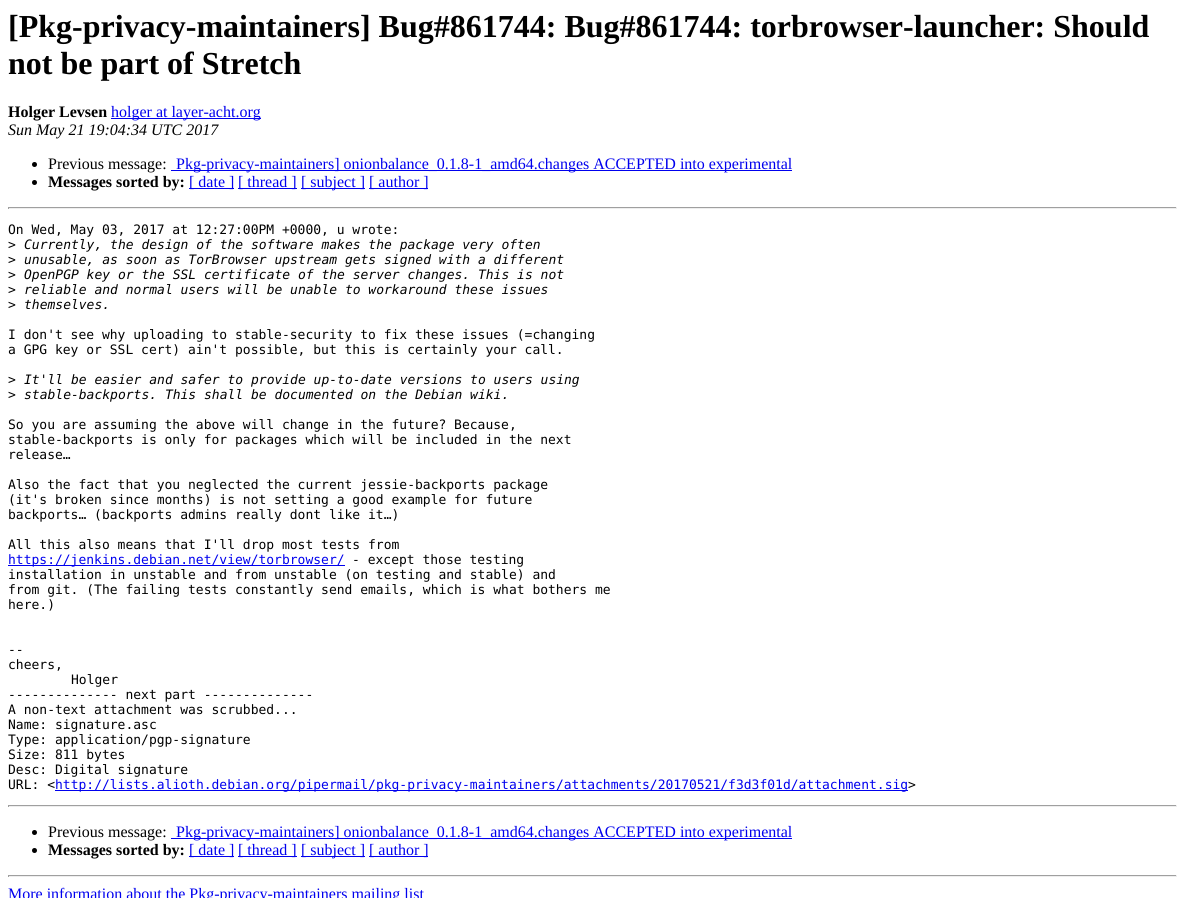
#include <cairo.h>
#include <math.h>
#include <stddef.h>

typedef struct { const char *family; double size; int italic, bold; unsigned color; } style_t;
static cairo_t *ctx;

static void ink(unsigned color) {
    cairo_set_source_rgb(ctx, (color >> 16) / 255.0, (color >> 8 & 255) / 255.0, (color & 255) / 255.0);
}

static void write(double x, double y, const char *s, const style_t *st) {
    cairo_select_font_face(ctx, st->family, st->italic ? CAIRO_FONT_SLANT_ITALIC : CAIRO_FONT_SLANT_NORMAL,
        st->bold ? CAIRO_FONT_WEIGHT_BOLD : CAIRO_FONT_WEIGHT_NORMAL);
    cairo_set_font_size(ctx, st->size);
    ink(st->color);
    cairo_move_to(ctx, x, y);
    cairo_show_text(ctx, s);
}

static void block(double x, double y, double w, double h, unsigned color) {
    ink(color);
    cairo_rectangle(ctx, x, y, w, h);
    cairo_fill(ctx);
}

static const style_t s1 = {"Liberation Serif", 32, 0, 1, 0x000000};
static const style_t s2 = {"Liberation Serif", 16, 0, 1, 0x000000};
static const style_t s3 = {"Liberation Serif", 16, 0, 0, 0x0000ee};
static const style_t s4 = {"Liberation Serif", 16, 1, 0, 0x000000};
static const style_t s5 = {"Liberation Serif", 16, 0, 0, 0x000000};
static const style_t s6 = {"DejaVu Sans Mono", 13, 0, 0, 0x000000};
static const style_t s7 = {"DejaVu Sans Mono", 13, 1, 0, 0x000000};
static const style_t s8 = {"DejaVu Sans Mono", 13, 0, 0, 0x0000ee};

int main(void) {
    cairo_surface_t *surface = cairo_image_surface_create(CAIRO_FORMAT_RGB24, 1185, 898);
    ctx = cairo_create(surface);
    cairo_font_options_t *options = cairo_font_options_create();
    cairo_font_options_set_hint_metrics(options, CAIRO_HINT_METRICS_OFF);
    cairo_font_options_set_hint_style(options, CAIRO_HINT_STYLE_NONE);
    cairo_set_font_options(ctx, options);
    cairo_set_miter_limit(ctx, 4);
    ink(0xffffff);
    cairo_paint(ctx);
    write(8, 37, "[Pkg-privacy-maintainers] Bug#861744: Bug#861744: torbrowser-launcher: Should", &s1);
    write(8, 74, "not be part of Stretch", &s1);
    write(8, 117, "Holger Levsen", &s2);
    block(111, 118, 150, 1, 0x0000ee);
    write(111, 117, "holger at layer-acht.org", &s3);
    write(8, 135, "Sun May 21 19:04:34 UTC 2017", &s4);
    cairo_new_path(ctx);
    cairo_arc(ctx, 34.5, 164.5, 2.5, 0, 2 * M_PI);
    cairo_fill(ctx);
    write(48, 169, "Previous message:", &s5);
    block(171, 170, 621, 1, 0x0000ee);
    write(176, 169, "Pkg-privacy-maintainers] onionbalance_0.1.8-1_amd64.changes ACCEPTED into experimental", &s3);
    ink(0x000000);
    cairo_new_path(ctx);
    cairo_arc(ctx, 34.5, 182.5, 2.5, 0, 2 * M_PI);
    cairo_fill(ctx);
    write(48, 187, "Messages sorted by:", &s2);
    block(189, 188, 45, 1, 0x0000ee);
    write(189, 187, "[ date ]", &s3);
    block(238, 188, 59, 1, 0x0000ee);
    write(238, 187, "[ thread ]", &s3);
    block(301, 188, 64, 1, 0x0000ee);
    write(301, 187, "[ subject ]", &s3);
    block(369, 188, 59, 1, 0x0000ee);
    write(369, 187, "[ author ]", &s3);
    block(8, 207, 1169, 1, 0x9f9f9f);
    block(1176, 207, 1, 2, 0xeeeeee);
    block(8, 208, 1169, 1, 0xeeeeee);
    block(8, 207, 1, 2, 0x9f9f9f);
    write(8, 234, "On Wed, May 03, 2017 at 12:27:00PM +0000, u wrote:", &s6);
    write(8, 249, ">", &s6);
    write(24, 249, "Currently, the design of the software makes the package very often", &s7);
    write(8, 264, ">", &s6);
    write(24, 264, "unusable, as soon as TorBrowser upstream gets signed with a different", &s7);
    write(8, 279, ">", &s6);
    write(24, 279, "OpenPGP key or the SSL certificate of the server changes. This is not", &s7);
    write(8, 294, ">", &s6);
    write(24, 294, "reliable and normal users will be unable to workaround these issues", &s7);
    write(8, 309, ">", &s6);
    write(24, 309, "themselves.", &s7);
    write(8, 339, "I don't see why uploading to stable-security to fix these issues (=changing", &s6);
    write(8, 354, "a GPG key or SSL cert) ain't possible, but this is certainly your call.", &s6);
    write(8, 384, ">", &s6);
    write(24, 384, "It'll be easier and safer to provide up-to-date versions to users using", &s7);
    write(8, 399, ">", &s6);
    write(24, 399, "stable-backports. This shall be documented on the Debian wiki.", &s7);
    write(8, 429, "So you are assuming the above will change in the future? Because,", &s6);
    write(8, 444, "stable-backports is only for packages which will be included in the next", &s6);
    write(8, 459, "release…", &s6);
    write(8, 489, "Also the fact that you neglected the current jessie-backports package", &s6);
    write(8, 504, "(it's broken since months) is not setting a good example for future", &s6);
    write(8, 519, "backports… (backports admins really dont like it…)", &s6);
    write(8, 549, "All this also means that I'll drop most tests from", &s6);
    block(8, 565, 337, 1, 0x0000ee);
    write(8, 564, "https://jenkins.debian.net/view/torbrowser/", &s8);
    write(352, 564, "- except those testing", &s6);
    write(8, 579, "installation in unstable and from unstable (on testing and stable) and", &s6);
    write(8, 594, "from git. (The failing tests constantly send emails, which is what bothers me", &s6);
    write(8, 609, "here.)", &s6);
    write(8, 654, "--", &s6);
    write(8, 669, "cheers,", &s6);
    write(71, 684, "Holger", &s6);
    write(8, 699, "-------------- next part --------------", &s6);
    write(8, 714, "A non-text attachment was scrubbed...", &s6);
    write(8, 729, "Name: signature.asc", &s6);
    write(8, 744, "Type: application/pgp-signature", &s6);
    write(8, 759, "Size: 811 bytes", &s6);
    write(8, 774, "Desc: Digital signature", &s6);
    write(8, 789, "URL: <", &s6);
    block(55, 790, 853, 1, 0x0000ee);
    write(55, 789, "http://lists.alioth.debian.org/pipermail/pkg-privacy-maintainers/attachments/20170521/f3d3f01d/attachment.sig", &s8);
    write(908, 789, ">", &s6);
    block(8, 805, 1169, 1, 0x9f9f9f);
    block(1176, 805, 1, 2, 0xeeeeee);
    block(8, 806, 1169, 1, 0xeeeeee);
    block(8, 805, 1, 2, 0x9f9f9f);
    ink(0x000000);
    cairo_new_path(ctx);
    cairo_arc(ctx, 34.5, 832.5, 2.5, 0, 2 * M_PI);
    cairo_fill(ctx);
    write(48, 837, "Previous message:", &s5);
    block(171, 838, 621, 1, 0x0000ee);
    write(176, 837, "Pkg-privacy-maintainers] onionbalance_0.1.8-1_amd64.changes ACCEPTED into experimental", &s3);
    ink(0x000000);
    cairo_new_path(ctx);
    cairo_arc(ctx, 34.5, 850.5, 2.5, 0, 2 * M_PI);
    cairo_fill(ctx);
    write(48, 855, "Messages sorted by:", &s2);
    block(189, 856, 45, 1, 0x0000ee);
    write(189, 855, "[ date ]", &s3);
    block(238, 856, 59, 1, 0x0000ee);
    write(238, 855, "[ thread ]", &s3);
    block(301, 856, 64, 1, 0x0000ee);
    write(301, 855, "[ subject ]", &s3);
    block(369, 856, 59, 1, 0x0000ee);
    write(369, 855, "[ author ]", &s3);
    block(8, 875, 1169, 1, 0x9f9f9f);
    block(1176, 875, 1, 2, 0xeeeeee);
    block(8, 876, 1169, 1, 0xeeeeee);
    block(8, 875, 1, 2, 0x9f9f9f);
    write(8, 899, "More information about the Pkg-privacy-maintainers mailing list", &s3);
    cairo_surface_write_to_png(surface, "screenshot.png");
    cairo_font_options_destroy(options);
    cairo_destroy(ctx);
    cairo_surface_destroy(surface);
    return 0;
}
